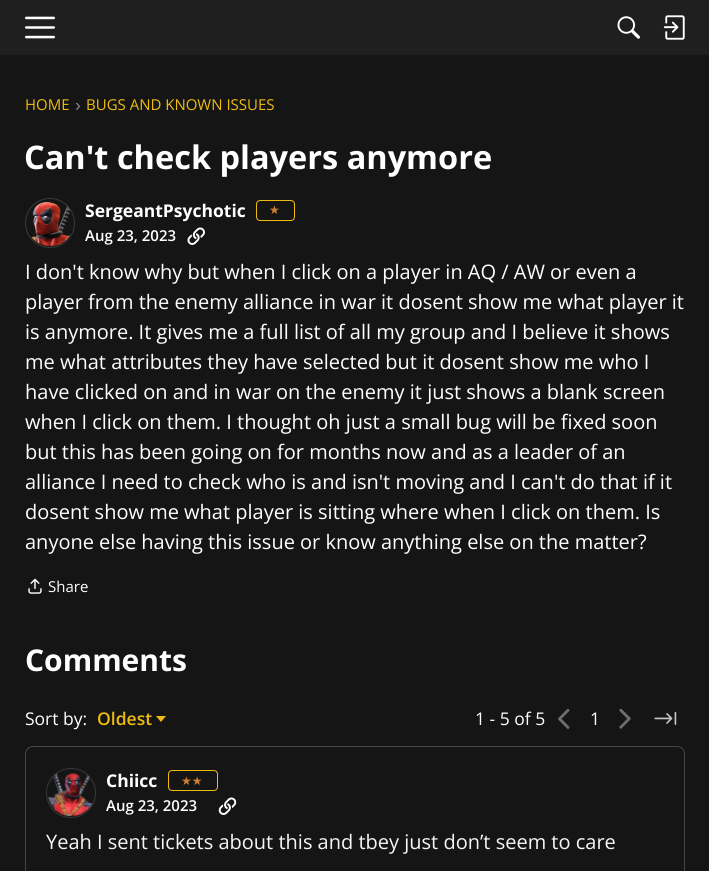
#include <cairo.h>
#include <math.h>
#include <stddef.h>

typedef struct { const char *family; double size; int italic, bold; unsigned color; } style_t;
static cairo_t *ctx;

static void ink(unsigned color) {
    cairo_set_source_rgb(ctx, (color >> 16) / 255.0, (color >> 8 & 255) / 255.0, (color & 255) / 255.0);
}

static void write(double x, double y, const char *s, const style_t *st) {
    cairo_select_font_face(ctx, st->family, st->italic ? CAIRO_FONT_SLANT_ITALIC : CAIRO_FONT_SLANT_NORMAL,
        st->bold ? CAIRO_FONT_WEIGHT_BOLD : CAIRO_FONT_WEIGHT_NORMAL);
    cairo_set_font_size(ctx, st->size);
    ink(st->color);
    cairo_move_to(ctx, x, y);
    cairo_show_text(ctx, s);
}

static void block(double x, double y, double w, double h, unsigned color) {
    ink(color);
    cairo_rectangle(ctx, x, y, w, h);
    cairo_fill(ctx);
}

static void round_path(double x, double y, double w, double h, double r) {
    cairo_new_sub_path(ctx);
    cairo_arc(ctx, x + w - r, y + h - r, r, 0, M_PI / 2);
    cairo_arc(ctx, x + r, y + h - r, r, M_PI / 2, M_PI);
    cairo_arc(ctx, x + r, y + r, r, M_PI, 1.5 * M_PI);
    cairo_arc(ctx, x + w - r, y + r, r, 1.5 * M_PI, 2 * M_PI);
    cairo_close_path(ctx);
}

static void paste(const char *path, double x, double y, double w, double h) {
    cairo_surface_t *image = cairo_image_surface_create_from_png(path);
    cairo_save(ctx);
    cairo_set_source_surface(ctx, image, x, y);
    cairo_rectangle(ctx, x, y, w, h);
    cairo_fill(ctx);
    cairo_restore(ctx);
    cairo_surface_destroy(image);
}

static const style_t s1 = {"Open Sans", 15, 0, 0, 0xeebc11};
static const style_t s2 = {"Liberation Sans", 17.5, 0, 0, 0x8a8a8a};
static const style_t s3 = {"Open Sans", 32.5, 0, 1, 0xffffff};
static const style_t s4 = {"Open Sans", 17.5, 0, 1, 0xffffff};
static const style_t s5 = {"DejaVu Sans", 12, 0, 0, 0xcd7f32};
static const style_t s6 = {"Open Sans SemiBold", 15, 0, 0, 0xffffff};
static const style_t s7 = {"Open Sans", 20, 0, 0, 0xffffff};
static const style_t s8 = {"Open Sans", 15, 0, 0, 0xffffff};
static const style_t s9 = {"Open Sans", 30, 0, 1, 0xffffff};
static const style_t s10 = {"Open Sans", 17.5, 0, 0, 0xffffff};
static const style_t s11 = {"Open Sans SemiBold", 17.5, 0, 0, 0xeebc11};
static const style_t s12 = {"Open Sans", 20, 0, 0, 0xf5f6f7};

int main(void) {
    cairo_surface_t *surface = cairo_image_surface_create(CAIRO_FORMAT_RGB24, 709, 871);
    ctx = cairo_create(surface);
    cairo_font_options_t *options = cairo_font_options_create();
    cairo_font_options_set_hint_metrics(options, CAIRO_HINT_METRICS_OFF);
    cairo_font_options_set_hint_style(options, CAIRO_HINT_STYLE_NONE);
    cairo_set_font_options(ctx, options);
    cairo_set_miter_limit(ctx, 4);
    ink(0x151515);
    cairo_paint(ctx);
    block(0, 0, 709, 55, 0x1f1f1f);
    paste("pic1.png", 25, 16, 30, 23);
    paste("pic2.png", 617, 16, 23, 23);
    paste("pic3.png", 663, 15, 22, 25);
    write(25, 110, "HOME", &s1);
    write(75, 111, "›", &s2);
    write(86, 110, "BUGS AND KNOWN ISSUES", &s1);
    write(24, 169, "Can't check players anymore", &s3);
    cairo_new_path(ctx);
    cairo_arc(ctx, 50, 223, 24.5, 0, 2 * M_PI);
    ink(0x383838);
    cairo_set_line_width(ctx, 1);
    cairo_stroke(ctx);
    paste("pic4.png", 31, 202, 40, 45);
    write(85, 217, "SergeantPsychotic", &s4);
    round_path(256.5, 200.5, 38, 20, 3.5);
    ink(0xeebc11);
    cairo_stroke(ctx);
    write(269, 214, "★", &s5);
    write(85, 241, "Aug 23, 2023", &s6);
    paste("pic5.png", 187, 227, 18, 18);
    write(25, 279, "I don't know why but when I click on a player in AQ / AW or even a", &s7);
    write(25, 309, "player from the enemy alliance in war it dosent show me what player it", &s7);
    write(25, 339, "is anymore. It gives me a full list of all my group and I believe it shows", &s7);
    write(25, 369, "me what attributes they have selected but it dosent show me who I", &s7);
    write(25, 399, "have clicked on and in war on the enemy it just shows a blank screen", &s7);
    write(25, 429, "when I click on them. I thought oh just a small bug will be fixed soon", &s7);
    write(25, 459, "but this has been going on for months now and as a leader of an", &s7);
    write(25, 489, "alliance I need to check who is and isn't moving and I can't do that if it", &s7);
    write(25, 519, "dosent show me what player is sitting where when I click on them. Is", &s7);
    write(25, 549, "anyone else having this issue or know anything else on the matter?", &s7);
    paste("pic6.png", 28, 578, 14, 16);
    write(48, 592, "Share", &s8);
    write(25, 671, "Comments", &s9);
    write(25, 725, "Sort by:", &s10);
    write(97, 725, "Oldest", &s11);
    cairo_new_path(ctx);
    cairo_move_to(ctx, 156, 716);
    cairo_line_to(ctx, 166, 716);
    cairo_line_to(ctx, 161, 722);
    cairo_close_path(ctx);
    cairo_fill(ctx);
    write(475, 725, "1 - 5 of 5", &s10);
    paste("pic7.png", 558, 709, 12, 20);
    write(590, 725, "1", &s10);
    paste("pic8.png", 619, 708, 12, 21);
    paste("pic9.png", 654, 711, 23, 14);
    round_path(25.5, 746.5, 659, 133, 7.5);
    ink(0x444444);
    cairo_stroke(ctx);
    cairo_arc(ctx, 71, 793, 24.5, 0, 2 * M_PI);
    ink(0x383838);
    cairo_stroke(ctx);
    paste("pic10.png", 48, 773, 45, 44);
    write(106, 787, "Chiicc", &s4);
    round_path(168.5, 770.5, 49, 20, 3.5);
    ink(0xeebc11);
    cairo_stroke(ctx);
    write(181, 785, "★★", &s5);
    write(106, 811, "Aug 23, 2023", &s6);
    paste("pic11.png", 218, 797, 19, 18);
    write(46, 849, "Yeah I sent tickets about this and tbey just don’t seem to care", &s12);
    cairo_surface_write_to_png(surface, "screenshot.png");
    cairo_font_options_destroy(options);
    cairo_destroy(ctx);
    cairo_surface_destroy(surface);
    return 0;
}
